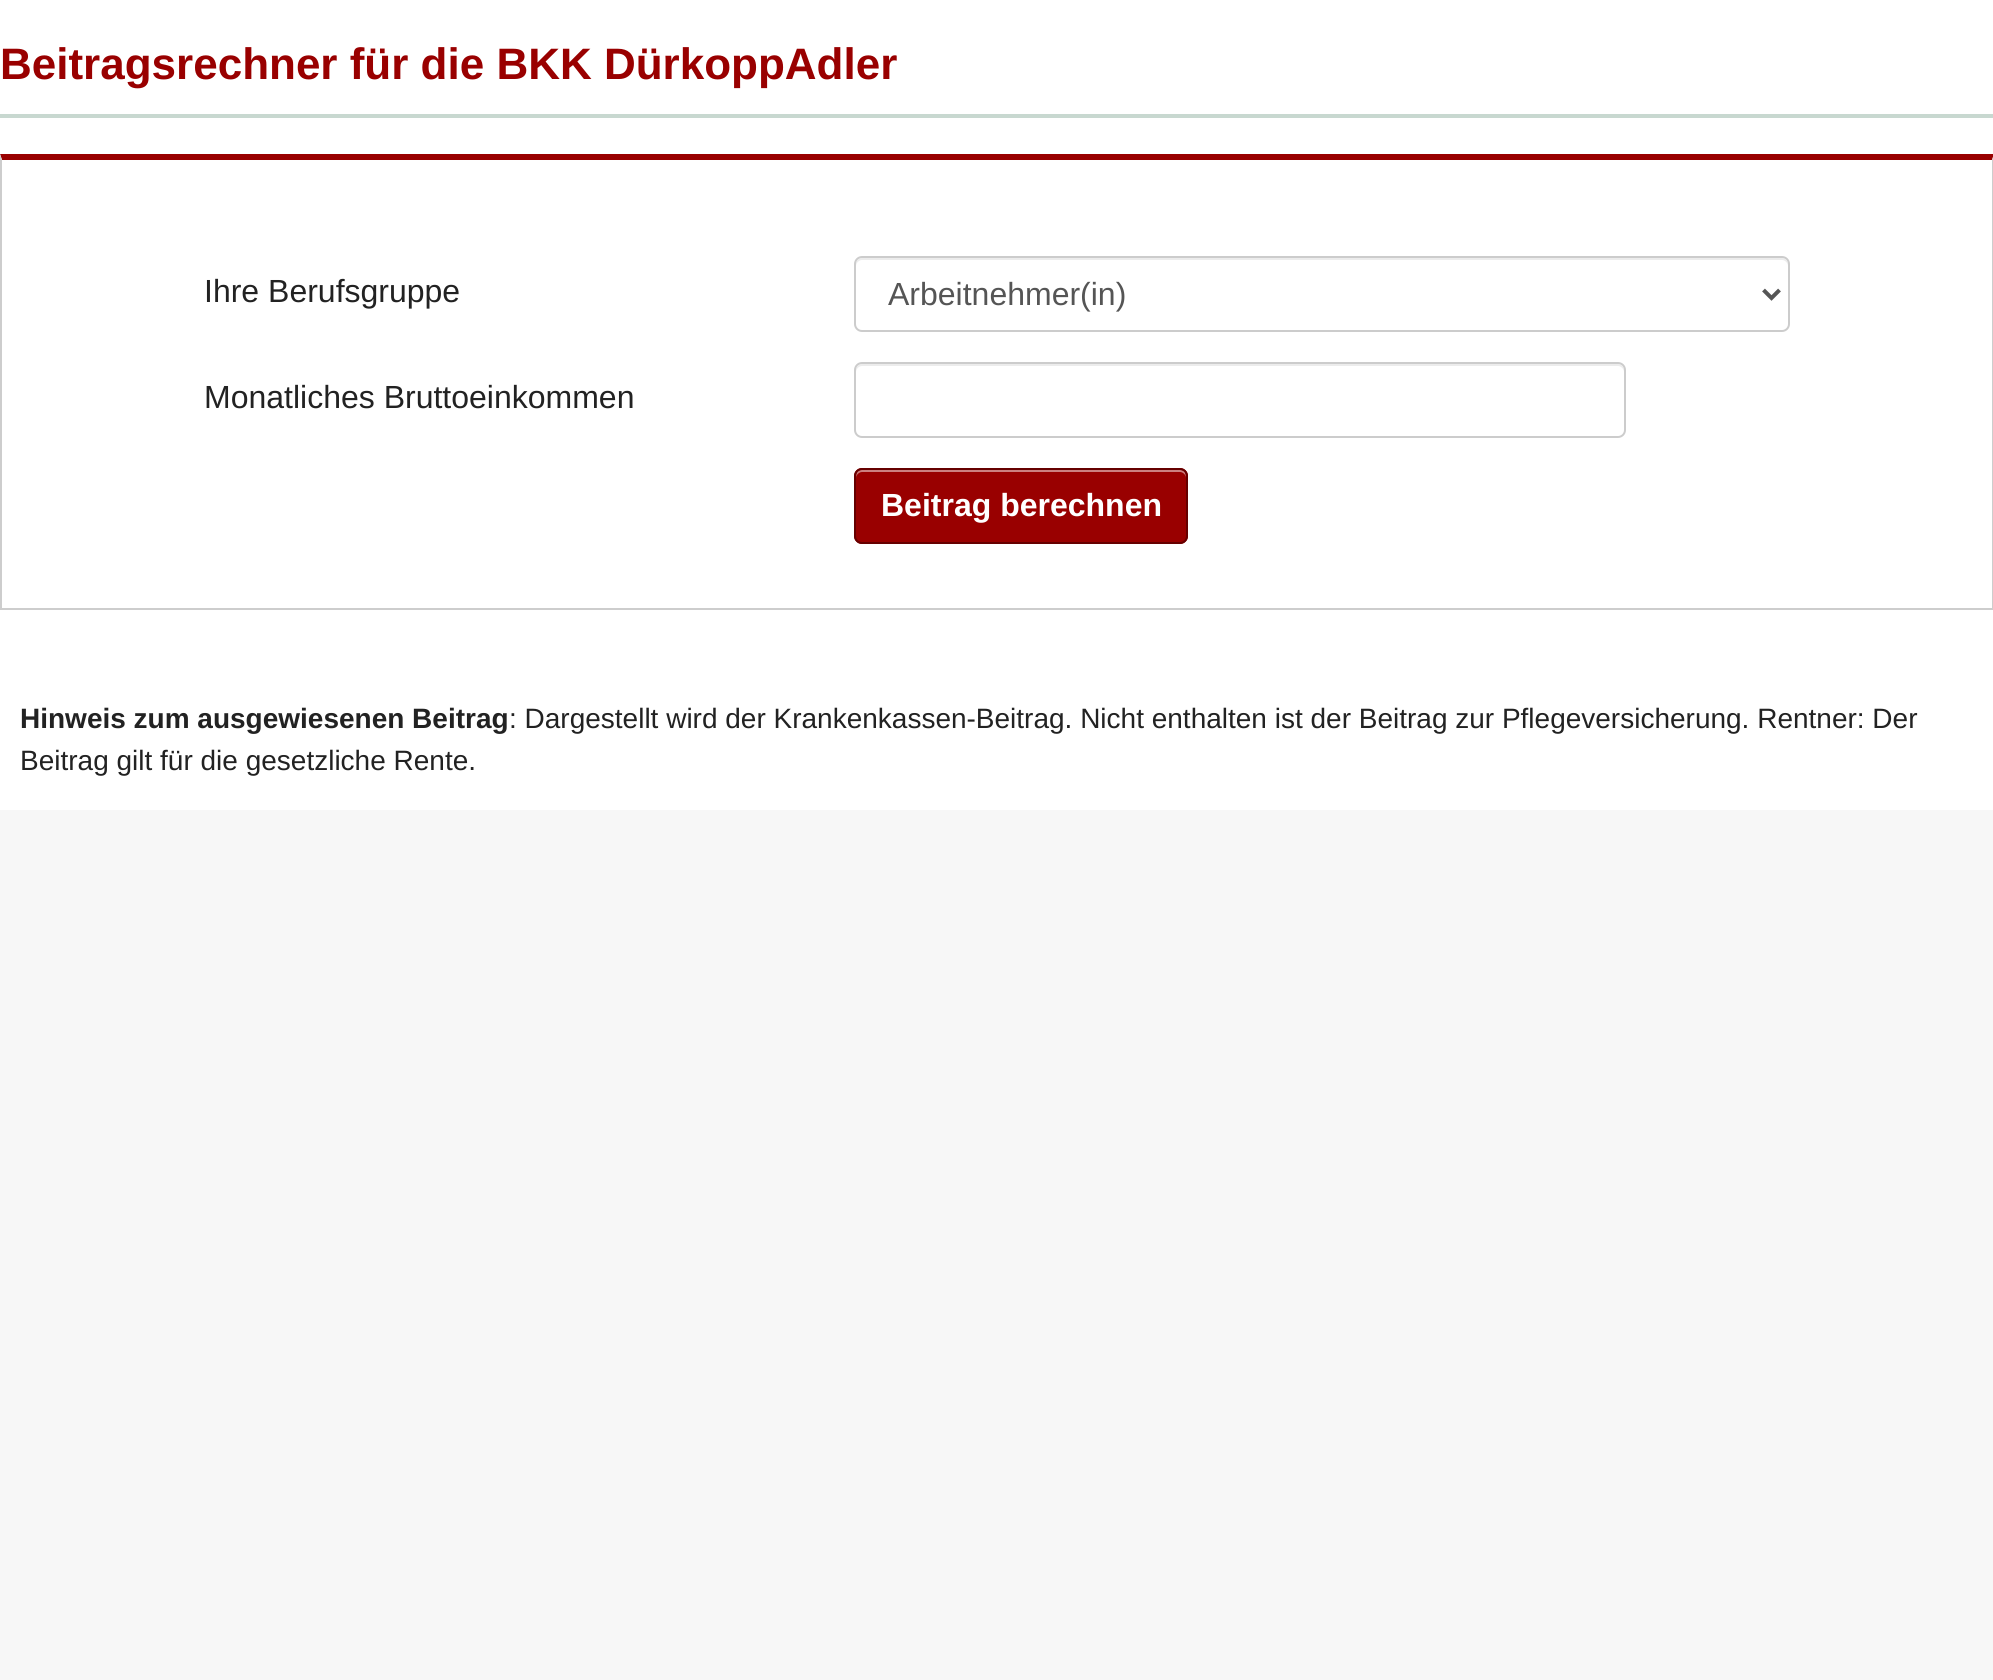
#include <cairo.h>
#include <math.h>
#include <stddef.h>

typedef struct { const char *family; double size; int italic, bold; unsigned color; } style_t;
static cairo_t *ctx;

static void ink(unsigned color) {
    cairo_set_source_rgb(ctx, (color >> 16) / 255.0, (color >> 8 & 255) / 255.0, (color & 255) / 255.0);
}

static void write(double x, double y, const char *s, const style_t *st) {
    cairo_select_font_face(ctx, st->family, st->italic ? CAIRO_FONT_SLANT_ITALIC : CAIRO_FONT_SLANT_NORMAL,
        st->bold ? CAIRO_FONT_WEIGHT_BOLD : CAIRO_FONT_WEIGHT_NORMAL);
    cairo_set_font_size(ctx, st->size);
    ink(st->color);
    cairo_move_to(ctx, x, y);
    cairo_show_text(ctx, s);
}

static void block(double x, double y, double w, double h, unsigned color) {
    ink(color);
    cairo_rectangle(ctx, x, y, w, h);
    cairo_fill(ctx);
}

static void round_path(double x, double y, double w, double h, double r) {
    cairo_new_sub_path(ctx);
    cairo_arc(ctx, x + w - r, y + h - r, r, 0, M_PI / 2);
    cairo_arc(ctx, x + r, y + h - r, r, M_PI / 2, M_PI);
    cairo_arc(ctx, x + r, y + r, r, M_PI, 1.5 * M_PI);
    cairo_arc(ctx, x + w - r, y + r, r, 1.5 * M_PI, 2 * M_PI);
    cairo_close_path(ctx);
}

static const style_t s1 = {"Liberation Sans", 44, 0, 1, 0x990000};
static const style_t s2 = {"Liberation Sans", 32, 0, 0, 0x222222};
static const style_t s3 = {"Liberation Sans", 32, 0, 0, 0x555555};
static const style_t s4 = {"Liberation Sans", 32, 0, 1, 0xffffff};
static const style_t s5 = {"Liberation Sans", 28, 0, 1, 0x222222};
static const style_t s6 = {"Liberation Sans", 28, 0, 0, 0x222222};

int main(void) {
    cairo_surface_t *surface = cairo_image_surface_create(CAIRO_FORMAT_RGB24, 1993, 1680);
    ctx = cairo_create(surface);
    cairo_font_options_t *options = cairo_font_options_create();
    cairo_font_options_set_hint_metrics(options, CAIRO_HINT_METRICS_OFF);
    cairo_font_options_set_hint_style(options, CAIRO_HINT_STYLE_NONE);
    cairo_set_font_options(ctx, options);
    cairo_set_miter_limit(ctx, 4);
    ink(0xf7f7f7);
    cairo_paint(ctx);
    block(0, 0, 1993, 810, 0xffffff);
    block(0, 114, 1993, 4, 0xc8d8d0);
    write(0, 79, "Beitragsrechner für die BKK DürkoppAdler", &s1);
    cairo_new_path(ctx);
    cairo_move_to(ctx, 0, 154);
    cairo_line_to(ctx, 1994, 154);
    cairo_line_to(ctx, 1992, 160);
    cairo_line_to(ctx, 2, 160);
    cairo_close_path(ctx);
    cairo_fill(ctx);
    ink(0xcdcdcd);
    cairo_new_path(ctx);
    cairo_move_to(ctx, 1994, 154);
    cairo_line_to(ctx, 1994, 610);
    cairo_line_to(ctx, 1992, 608);
    cairo_line_to(ctx, 1992, 160);
    cairo_close_path(ctx);
    cairo_fill(ctx);
    block(0, 608, 1993, 2, 0xcdcdcd);
    cairo_new_path(ctx);
    cairo_move_to(ctx, 0, 610);
    cairo_line_to(ctx, 0, 154);
    cairo_line_to(ctx, 2, 160);
    cairo_line_to(ctx, 2, 608);
    cairo_close_path(ctx);
    cairo_fill(ctx);
    write(204, 302, "Ihre Berufsgruppe", &s2);
    ink(0xececec);
    cairo_new_path(ctx);
    cairo_move_to(ctx, 862, 260);
    cairo_line_to(ctx, 1782, 260);
    cairo_curve_to(ctx, 1785, 260, 1788, 263, 1788, 266);
    cairo_line_to(ctx, 1788, 264);
    cairo_curve_to(ctx, 1788, 261, 1785, 258, 1782, 258);
    cairo_line_to(ctx, 862, 258);
    cairo_curve_to(ctx, 859, 258, 856, 261, 856, 264);
    cairo_line_to(ctx, 856, 266);
    cairo_curve_to(ctx, 856, 263, 859, 260, 862, 260);
    cairo_close_path(ctx);
    cairo_fill(ctx);
    round_path(855, 257, 934, 74, 7);
    ink(0xcccccc);
    cairo_stroke(ctx);
    cairo_new_path(ctx);
    cairo_move_to(ctx, 1763.5, 290);
    cairo_line_to(ctx, 1771.5, 298);
    cairo_line_to(ctx, 1779.5, 290);
    ink(0x555555);
    cairo_set_line_width(ctx, 4);
    cairo_stroke(ctx);
    write(888, 305, "Arbeitnehmer(in)", &s3);
    write(204, 408, "Monatliches Bruttoeinkommen", &s2);
    ink(0xececec);
    cairo_new_path(ctx);
    cairo_move_to(ctx, 862, 366);
    cairo_line_to(ctx, 1618, 366);
    cairo_curve_to(ctx, 1621, 366, 1624, 369, 1624, 372);
    cairo_line_to(ctx, 1624, 370);
    cairo_curve_to(ctx, 1624, 367, 1621, 364, 1618, 364);
    cairo_line_to(ctx, 862, 364);
    cairo_curve_to(ctx, 859, 364, 856, 367, 856, 370);
    cairo_line_to(ctx, 856, 372);
    cairo_curve_to(ctx, 856, 369, 859, 366, 862, 366);
    cairo_close_path(ctx);
    cairo_fill(ctx);
    round_path(855, 363, 770, 74, 7);
    ink(0xcccccc);
    cairo_set_line_width(ctx, 2);
    cairo_stroke(ctx);
    ink(0x990000);
    round_path(854, 468, 334, 76, 8);
    cairo_fill(ctx);
    ink(0xcc8080);
    cairo_new_path(ctx);
    cairo_move_to(ctx, 862, 472);
    cairo_line_to(ctx, 1180, 472);
    cairo_curve_to(ctx, 1183, 472, 1186, 475, 1186, 478);
    cairo_curve_to(ctx, 1186, 474, 1185, 470, 1180, 470);
    cairo_line_to(ctx, 862, 470);
    cairo_curve_to(ctx, 857, 470, 856, 474, 856, 478);
    cairo_curve_to(ctx, 856, 475, 859, 472, 862, 472);
    cairo_close_path(ctx);
    cairo_fill(ctx);
    round_path(855, 469, 332, 74, 7);
    ink(0x660000);
    cairo_stroke(ctx);
    write(881, 516, "Beitrag berechnen", &s4);
    write(20, 728, "Hinweis zum ausgewiesenen Beitrag", &s5);
    write(509, 728, ": Dargestellt wird der Krankenkassen-Beitrag. Nicht enthalten ist der Beitrag zur Pflegeversicherung. Rentner: Der", &s6);
    write(20, 770, "Beitrag gilt für die gesetzliche Rente.", &s6);
    cairo_surface_write_to_png(surface, "screenshot.png");
    cairo_font_options_destroy(options);
    cairo_destroy(ctx);
    cairo_surface_destroy(surface);
    return 0;
}
